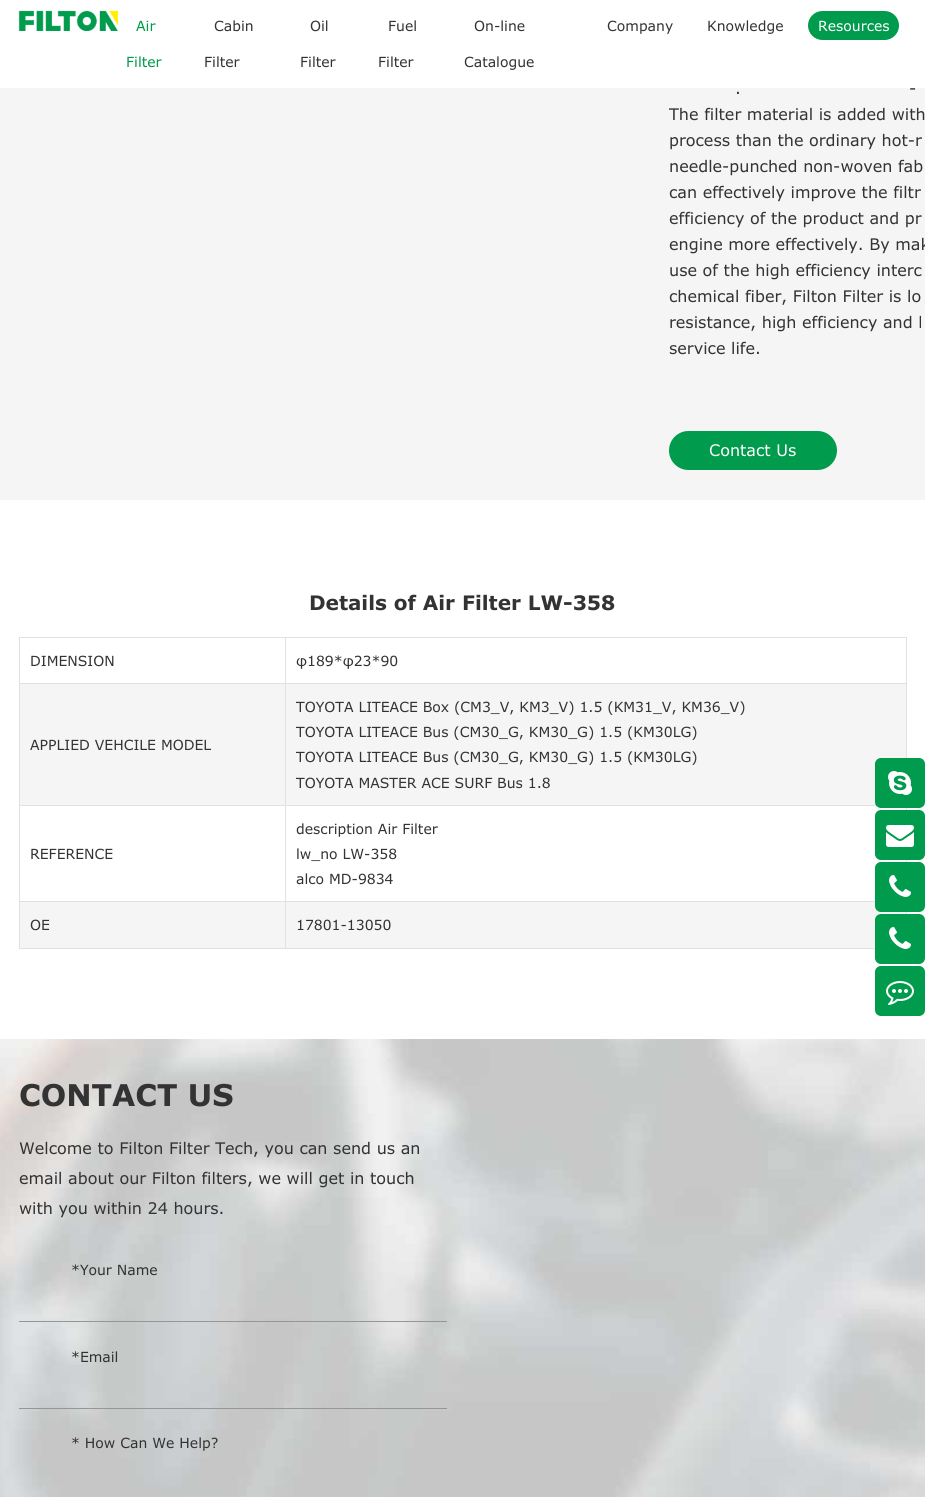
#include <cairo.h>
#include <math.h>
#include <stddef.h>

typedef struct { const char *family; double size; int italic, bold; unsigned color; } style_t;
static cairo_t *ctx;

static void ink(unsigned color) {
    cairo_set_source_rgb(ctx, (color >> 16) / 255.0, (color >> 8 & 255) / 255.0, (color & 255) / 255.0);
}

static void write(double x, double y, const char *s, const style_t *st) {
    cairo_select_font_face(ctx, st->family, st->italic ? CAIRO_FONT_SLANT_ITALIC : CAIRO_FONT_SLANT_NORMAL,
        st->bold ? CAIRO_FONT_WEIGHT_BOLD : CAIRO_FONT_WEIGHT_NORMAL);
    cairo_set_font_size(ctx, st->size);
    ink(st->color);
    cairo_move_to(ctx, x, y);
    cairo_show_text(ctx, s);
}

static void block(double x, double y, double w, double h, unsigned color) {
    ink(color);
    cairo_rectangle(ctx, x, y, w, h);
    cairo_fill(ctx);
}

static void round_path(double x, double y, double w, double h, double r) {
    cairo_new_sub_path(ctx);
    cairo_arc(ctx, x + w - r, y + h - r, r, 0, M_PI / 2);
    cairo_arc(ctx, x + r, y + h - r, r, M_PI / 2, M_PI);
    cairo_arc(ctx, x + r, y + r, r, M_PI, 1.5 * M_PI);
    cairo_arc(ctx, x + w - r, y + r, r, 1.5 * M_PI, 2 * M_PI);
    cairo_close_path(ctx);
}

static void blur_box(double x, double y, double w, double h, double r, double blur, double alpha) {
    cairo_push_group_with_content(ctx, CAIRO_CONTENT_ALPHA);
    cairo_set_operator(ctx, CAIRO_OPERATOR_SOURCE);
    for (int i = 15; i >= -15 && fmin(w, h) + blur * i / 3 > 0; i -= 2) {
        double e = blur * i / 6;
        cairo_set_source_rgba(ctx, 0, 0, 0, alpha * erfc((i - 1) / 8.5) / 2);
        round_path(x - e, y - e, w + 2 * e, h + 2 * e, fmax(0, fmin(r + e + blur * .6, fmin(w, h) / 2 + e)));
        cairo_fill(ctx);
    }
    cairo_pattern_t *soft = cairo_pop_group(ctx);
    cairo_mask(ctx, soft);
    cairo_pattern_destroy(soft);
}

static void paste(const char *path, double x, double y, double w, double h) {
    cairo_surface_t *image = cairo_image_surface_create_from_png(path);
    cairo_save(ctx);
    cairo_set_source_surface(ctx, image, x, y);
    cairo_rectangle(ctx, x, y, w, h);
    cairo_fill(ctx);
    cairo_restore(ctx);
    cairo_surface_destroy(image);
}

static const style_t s1 = {"Verdana", 14, 0, 0, 0x009b4c};
static const style_t s2 = {"Verdana", 14, 0, 0, 0x333333};
static const style_t s3 = {"Verdana", 14, 0, 0, 0xffffff};
static const style_t s4 = {"Verdana", 16, 0, 0, 0x333333};
static const style_t s5 = {"Verdana", 16, 0, 0, 0xffffff};
static const style_t s6 = {"Verdana", 20, 0, 1, 0x333333};
static const style_t s7 = {"Verdana", 30, 0, 1, 0x333333};

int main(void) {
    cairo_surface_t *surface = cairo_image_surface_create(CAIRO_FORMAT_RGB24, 925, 1497);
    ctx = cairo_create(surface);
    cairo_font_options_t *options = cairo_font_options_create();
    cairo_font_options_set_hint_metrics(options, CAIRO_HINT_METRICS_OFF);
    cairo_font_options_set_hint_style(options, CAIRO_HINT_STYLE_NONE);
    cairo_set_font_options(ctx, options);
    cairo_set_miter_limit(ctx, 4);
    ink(0xffffff);
    cairo_paint(ctx);
    block(0, 88, 925, 412, 0xf5f5f5);
    cairo_save(ctx);
    cairo_rectangle(ctx, 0, 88, 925, 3);
    cairo_clip(ctx);
    ink(0xf7f7f7);
    blur_box(-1, -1, 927, 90, 0, 1, 1);
    cairo_restore(ctx);
    paste("pic1.png", 18, 10, 100, 21);
    write(136, 31, "Air", &s1);
    write(126, 67, "Filter", &s1);
    write(214, 31, "Cabin", &s2);
    write(204, 67, "Filter", &s2);
    write(310, 31, "Oil", &s2);
    write(300, 67, "Filter", &s2);
    write(388, 31, "Fuel", &s2);
    write(378, 67, "Filter", &s2);
    write(474, 31, "On-line", &s2);
    write(464, 67, "Catalogue", &s2);
    write(607, 31, "Company", &s2);
    write(707, 31, "Knowledge", &s2);
    ink(0x009b4c);
    round_path(808, 11, 91, 29, 14.5);
    cairo_fill(ctx);
    write(818, 31, "Resources", &s3);
    write(909, 94, "-", &s4);
    write(735, 94, ".", &s4);
    write(669, 120, "The filter material is added with", &s4);
    write(669, 146, "process than the ordinary hot-r", &s4);
    write(669, 172, "needle-punched non-woven fab", &s4);
    write(669, 198, "can effectively improve the filtr", &s4);
    write(669, 224, "efficiency of the product and pr", &s4);
    write(669, 250, "engine more effectively. By mak", &s4);
    write(669, 276, "use of the high efficiency interc", &s4);
    write(669, 302, "chemical fiber, Filton Filter is lo", &s4);
    write(669, 328, "resistance, high efficiency and l", &s4);
    write(669, 354, "service life.", &s4);
    ink(0x009b4c);
    round_path(669, 431, 168, 39, 19.5);
    cairo_fill(ctx);
    write(709, 456, "Contact Us", &s5);
    write(309, 610, "Details of Air Filter LW-358", &s6);
    block(285, 637, 622, 1, 0xe1e1e1);
    block(285, 683, 622, 1, 0xe1e1e1);
    block(20, 684, 886, 121, 0xf5f5f5);
    block(285, 805, 592, 1, 0xe1e1e1);
    block(285, 901, 590, 1, 0xe1e1e1);
    block(20, 902, 886, 46, 0xf5f5f5);
    block(285, 948, 590, 1, 0xe1e1e1);
    block(285, 901, 1, 48, 0xe1e1e1);
    block(19, 901, 267, 1, 0xe1e1e1);
    block(285, 805, 1, 97, 0xe1e1e1);
    block(19, 805, 267, 1, 0xe1e1e1);
    block(285, 683, 1, 123, 0xe1e1e1);
    block(19, 683, 267, 1, 0xe1e1e1);
    block(285, 637, 1, 47, 0xe1e1e1);
    block(19, 637, 267, 1, 0xe1e1e1);
    block(19, 948, 267, 1, 0xe1e1e1);
    block(19, 901, 1, 48, 0xe1e1e1);
    block(19, 805, 1, 97, 0xe1e1e1);
    block(19, 683, 1, 123, 0xe1e1e1);
    block(19, 637, 1, 47, 0xe1e1e1);
    write(30, 666, "DIMENSION", &s2);
    block(906, 683, 1, 75, 0xe1e1e1);
    block(906, 637, 1, 47, 0xe1e1e1);
    write(296, 666, "φ189*φ23*90", &s2);
    write(30, 750, "APPLIED VEHCILE MODEL", &s2);
    write(296, 712, "TOYOTA LITEACE Box (CM3_V, KM3_V) 1.5 (KM31_V, KM36_V)", &s2);
    write(296, 737, "TOYOTA LITEACE Bus (CM30_G, KM30_G) 1.5 (KM30LG)", &s2);
    write(296, 762, "TOYOTA LITEACE Bus (CM30_G, KM30_G) 1.5 (KM30LG)", &s2);
    write(296, 788, "TOYOTA MASTER ACE SURF Bus 1.8", &s2);
    write(30, 859, "REFERENCE", &s2);
    block(906, 805, 1, 57, 0xe1e1e1);
    write(296, 834, "description Air Filter", &s2);
    write(296, 859, "lw_no LW-358", &s2);
    write(296, 884, "alco MD-9834", &s2);
    write(30, 930, "OE", &s2);
    block(906, 912, 1, 2, 0xe1e1e1);
    write(296, 930, "17801-13050", &s2);
    ink(0x009b4c);
    round_path(875, 758, 50, 50, 6);
    cairo_fill(ctx);
    paste("pic2.png", 888, 771, 24, 24);
    round_path(875, 810, 50, 50, 6);
    cairo_fill(ctx);
    paste("pic3.png", 886, 825, 28, 22);
    round_path(875, 862, 50, 50, 6);
    cairo_fill(ctx);
    paste("pic4.png", 889, 875, 22, 22);
    round_path(875, 914, 50, 50, 6);
    cairo_fill(ctx);
    paste("pic4.png", 889, 927, 22, 22);
    round_path(875, 966, 50, 50, 6);
    cairo_fill(ctx);
    paste("pic5.png", 886, 981, 28, 24);
    paste("pic6.png", 0, 1039, 925, 458);
    write(19, 1106, "CONTACT US", &s7);
    write(19, 1154, "Welcome to Filton Filter Tech, you can send us an", &s4);
    write(19, 1184, "email about our Filton filters, we will get in touch", &s4);
    write(19, 1214, "with you within 24 hours.", &s4);
    block(19, 1321, 428, 1, 0x969697);
    write(71, 1275, "*Your Name", &s2);
    block(19, 1408, 428, 1, 0x969697);
    write(71, 1362, "*Email", &s2);
    write(71, 1448, "* How Can We Help?", &s2);
    cairo_surface_write_to_png(surface, "screenshot.png");
    cairo_font_options_destroy(options);
    cairo_destroy(ctx);
    cairo_surface_destroy(surface);
    return 0;
}
